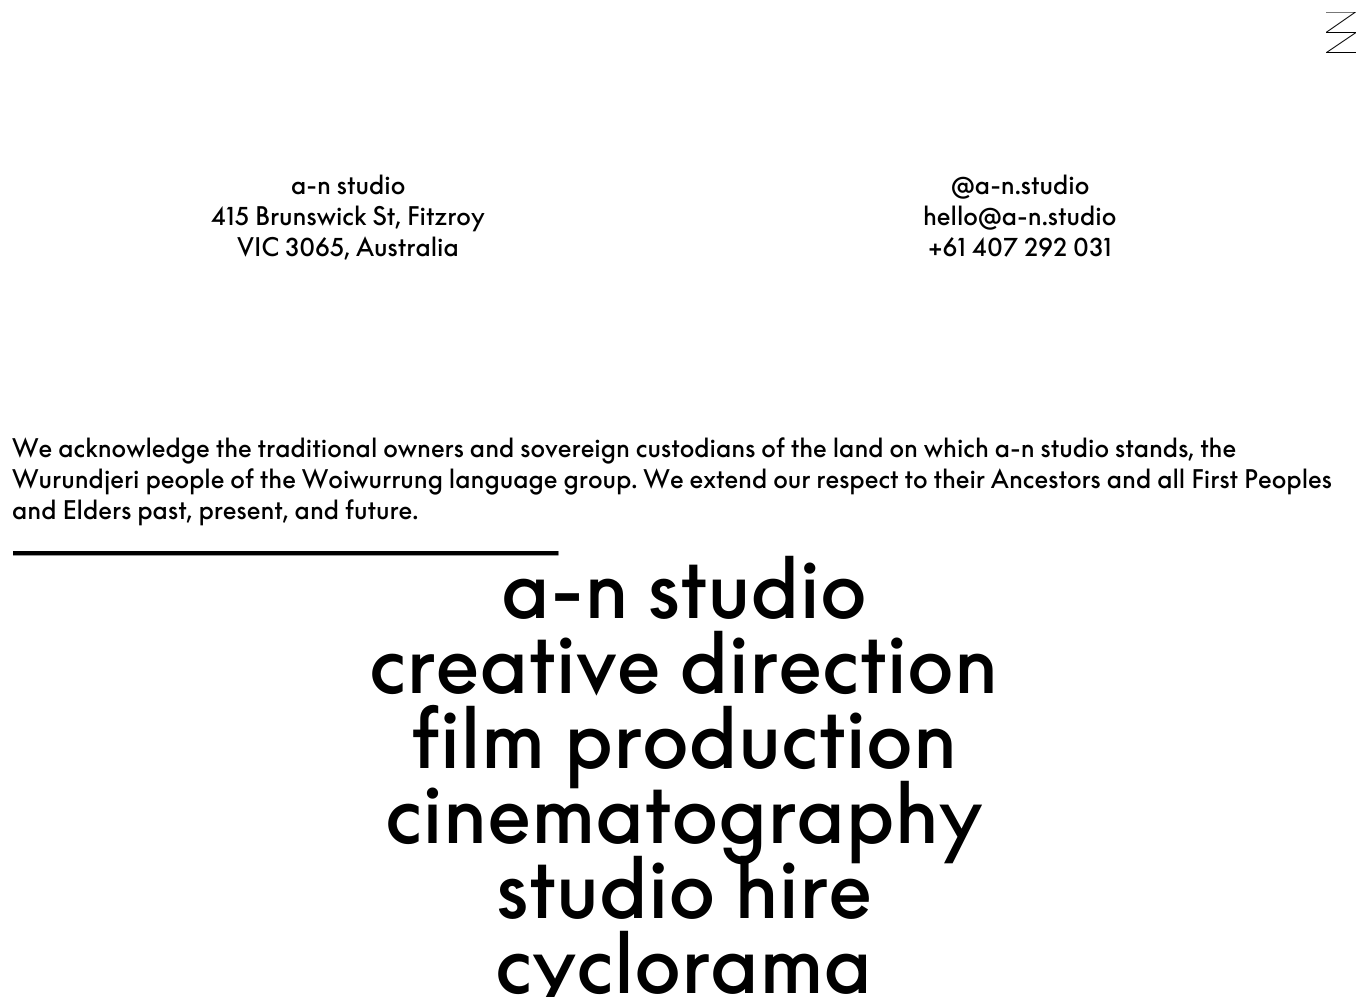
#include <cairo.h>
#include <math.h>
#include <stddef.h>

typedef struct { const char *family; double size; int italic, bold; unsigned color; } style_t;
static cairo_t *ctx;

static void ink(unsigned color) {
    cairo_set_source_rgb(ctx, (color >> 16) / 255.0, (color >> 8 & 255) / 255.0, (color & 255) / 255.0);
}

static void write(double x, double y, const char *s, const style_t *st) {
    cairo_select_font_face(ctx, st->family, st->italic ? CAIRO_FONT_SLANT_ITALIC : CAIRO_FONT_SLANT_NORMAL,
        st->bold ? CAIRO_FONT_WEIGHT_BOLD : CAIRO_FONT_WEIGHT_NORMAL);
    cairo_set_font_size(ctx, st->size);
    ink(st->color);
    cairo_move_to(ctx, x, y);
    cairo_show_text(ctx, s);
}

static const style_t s1 = {"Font", 25, 0, 0, 0x000000};
static const style_t s2 = {"Font", 80, 0, 0, 0x000000};

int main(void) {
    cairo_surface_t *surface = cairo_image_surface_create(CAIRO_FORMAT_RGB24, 1368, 997);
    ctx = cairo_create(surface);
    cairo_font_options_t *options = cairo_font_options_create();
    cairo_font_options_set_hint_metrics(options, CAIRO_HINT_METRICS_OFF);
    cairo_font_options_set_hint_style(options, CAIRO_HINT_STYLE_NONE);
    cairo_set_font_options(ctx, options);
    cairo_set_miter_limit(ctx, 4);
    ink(0xffffff);
    cairo_paint(ctx);
    cairo_save(ctx);
    cairo_rectangle(ctx, 1326, 12, 30, 41);
    cairo_clip(ctx);
    cairo_new_path(ctx);
    cairo_move_to(ctx, 1326, 12);
    cairo_line_to(ctx, 1355.5, 12);
    cairo_line_to(ctx, 1326, 32.5);
    cairo_line_to(ctx, 1356, 32.5);
    cairo_line_to(ctx, 1326.5, 52.5);
    cairo_line_to(ctx, 1356, 52.5);
    ink(0x000000);
    cairo_set_line_width(ctx, 1);
    cairo_stroke(ctx);
    cairo_restore(ctx);
    write(291, 194, "a-n studio", &s1);
    write(211, 225, "415 Brunswick St, Fitzroy", &s1);
    write(237, 256, "VIC 3065, Australia", &s1);
    write(951, 194, "@a-n.studio", &s1);
    write(923, 225, "hello@a-n.studio", &s1);
    write(928, 256, "+61 407 292 031", &s1);
    write(12, 457, "We acknowledge the traditional owners and sovereign custodians of the land on which a-n studio stands, the", &s1);
    write(12, 488, "Wurundjeri people of the Woiwurrung language group. We extend our respect to their Ancestors and all First Peoples", &s1);
    write(12, 519, "and Elders past, present, and future.", &s1);
    cairo_save(ctx);
    cairo_rectangle(ctx, 12, 551, 1344, 446);
    cairo_clip(ctx);
    cairo_new_path(ctx);
    cairo_move_to(ctx, 13, 553);
    cairo_line_to(ctx, 558.5, 553);
    cairo_move_to(ctx, 533, 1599);
    cairo_line_to(ctx, 1353.5, 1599);
    cairo_set_line_width(ctx, 4.8);
    cairo_stroke(ctx);
    cairo_restore(ctx);
    write(501, 618, "a-n studio", &s2);
    write(369, 693, "creative direction", &s2);
    write(411, 768, "film production", &s2);
    write(385, 843, "cinematography", &s2);
    write(496, 918, "studio hire", &s2);
    write(495, 993, "cyclorama", &s2);
    cairo_surface_write_to_png(surface, "screenshot.png");
    cairo_font_options_destroy(options);
    cairo_destroy(ctx);
    cairo_surface_destroy(surface);
    return 0;
}
